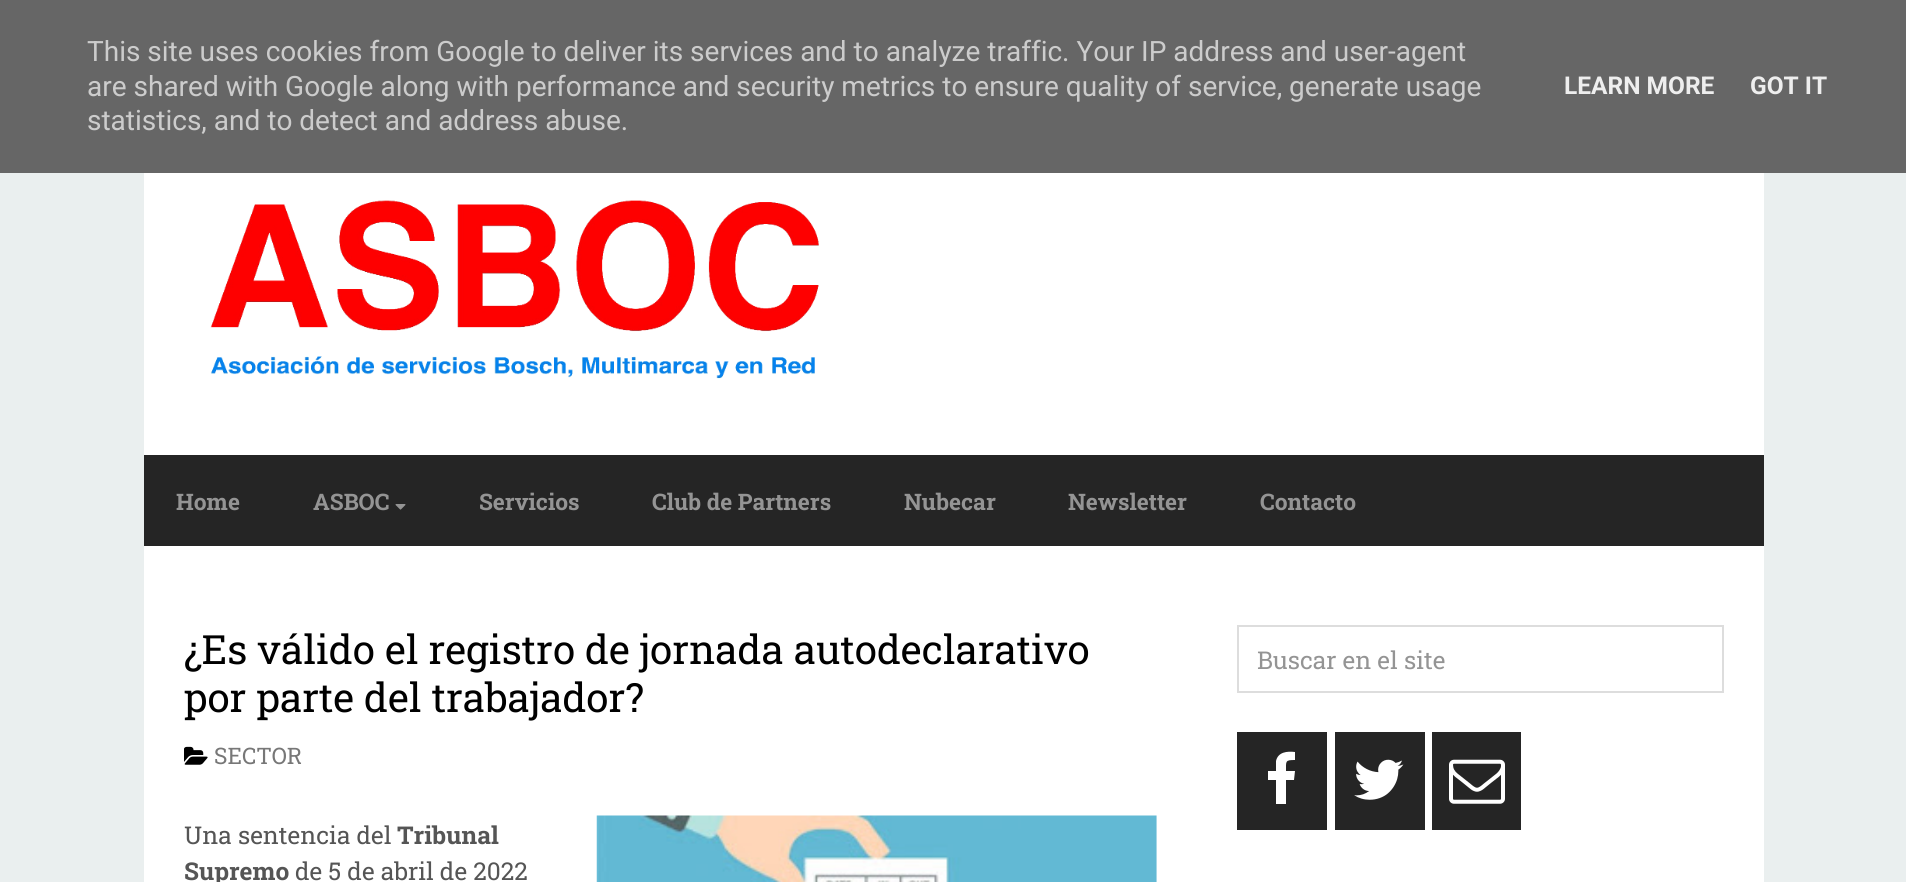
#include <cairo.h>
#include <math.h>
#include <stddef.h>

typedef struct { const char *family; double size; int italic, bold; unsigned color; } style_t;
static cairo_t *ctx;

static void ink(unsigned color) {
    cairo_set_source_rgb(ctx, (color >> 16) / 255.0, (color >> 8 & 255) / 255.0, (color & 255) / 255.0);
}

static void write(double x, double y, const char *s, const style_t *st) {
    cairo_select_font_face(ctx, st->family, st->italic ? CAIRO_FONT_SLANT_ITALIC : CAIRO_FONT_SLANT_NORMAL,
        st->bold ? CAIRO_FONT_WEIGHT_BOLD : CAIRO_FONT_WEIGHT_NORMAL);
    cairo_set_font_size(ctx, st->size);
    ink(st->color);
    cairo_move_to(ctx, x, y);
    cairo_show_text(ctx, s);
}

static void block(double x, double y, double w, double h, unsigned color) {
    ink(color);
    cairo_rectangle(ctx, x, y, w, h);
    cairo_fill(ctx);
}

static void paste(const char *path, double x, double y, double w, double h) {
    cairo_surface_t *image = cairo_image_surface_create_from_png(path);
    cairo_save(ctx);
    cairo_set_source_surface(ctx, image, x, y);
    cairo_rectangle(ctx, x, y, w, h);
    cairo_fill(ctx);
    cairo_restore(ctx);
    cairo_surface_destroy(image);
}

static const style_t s1 = {"Roboto", 28, 0, 0, 0xcccccc};
static const style_t s2 = {"Roboto", 24.5, 0, 1, 0xeeeeee};
static const style_t s3 = {"Roboto Slab", 22.75, 0, 1, 0x949494};
static const style_t s4 = {"Roboto Slab", 40.25, 0, 0, 0x000000};
static const style_t s5 = {"Roboto Slab", 22.75, 0, 0, 0x777777};
static const style_t s6 = {"Roboto Slab", 24.5, 0, 0, 0x555555};
static const style_t s7 = {"Roboto Slab", 24.5, 0, 1, 0x555555};
static const style_t s8 = {"Roboto Slab", 24.5, 0, 0, 0x949494};

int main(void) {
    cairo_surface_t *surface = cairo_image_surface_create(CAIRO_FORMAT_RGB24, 1906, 882);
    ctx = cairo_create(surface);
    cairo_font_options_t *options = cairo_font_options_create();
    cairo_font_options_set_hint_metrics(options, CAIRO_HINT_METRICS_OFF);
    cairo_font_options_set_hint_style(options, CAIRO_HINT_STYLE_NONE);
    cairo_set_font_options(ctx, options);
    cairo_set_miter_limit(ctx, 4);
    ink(0xeaefef);
    cairo_paint(ctx);
    block(0, 0, 1906, 173, 0x666666);
    write(87, 61, "This site uses cookies from Google to deliver its services and to analyze traffic. Your IP address and user-agent", &s1);
    write(87, 96, "are shared with Google along with performance and security metrics to ensure quality of service, generate usage", &s1);
    write(87, 130, "statistics, and to detect and address abuse.", &s1);
    write(1564, 94, "LEARN MORE", &s2);
    write(1750, 94, "GOT IT", &s2);
    block(144, 173, 1620, 282, 0xffffff);
    paste("pic1.png", 210, 200, 609, 179);
    block(144, 455, 1620, 91, 0x252525);
    write(176, 510, "Home", &s3);
    write(313, 510, "ASBOC", &s3);
    paste("pic2.png", 395, 504, 11, 6);
    write(479, 510, "Servicios", &s3);
    write(652, 510, "Club de Partners", &s3);
    write(904, 510, "Nubecar", &s3);
    write(1068, 510, "Newsletter", &s3);
    write(1260, 510, "Contacto", &s3);
    block(144, 546, 1620, 336, 0xffffff);
    write(184, 664, "¿Es válido el registro de jornada autodeclarativo", &s4);
    write(184, 712, "por parte del trabajador?", &s4);
    paste("pic3.png", 184, 746, 24, 19);
    write(214, 764, "SECTOR", &s5);
    write(184, 844, "Una sentencia del", &s6);
    write(397, 844, "Tribunal", &s7);
    paste("pic4.png", 596, 815, 561, 67);
    write(184, 880, "Supremo", &s7);
    write(295, 880, "de 5 de abril de 2022", &s6);
    cairo_rectangle(ctx, 1238, 626, 485, 66);
    ink(0xdddddd);
    cairo_stroke(ctx);
    write(1257, 669, "Buscar en el site", &s8);
    block(1237, 732, 90, 98, 0x252525);
    ink(0xffffff);
    cairo_new_path(ctx);
    cairo_move_to(ctx, 1295, 752);
    cairo_line_to(ctx, 1295, 760);
    cairo_curve_to(ctx, 1285, 760, 1286, 761, 1286, 771);
    cairo_line_to(ctx, 1295, 771);
    cairo_line_to(ctx, 1294, 780);
    cairo_line_to(ctx, 1286, 780);
    cairo_line_to(ctx, 1286, 804);
    cairo_line_to(ctx, 1276, 804);
    cairo_line_to(ctx, 1276, 780);
    cairo_line_to(ctx, 1268, 780);
    cairo_line_to(ctx, 1268, 771);
    cairo_line_to(ctx, 1276, 771);
    cairo_line_to(ctx, 1276, 761);
    cairo_curve_to(ctx, 1278, 752, 1287, 751, 1295, 752);
    cairo_close_path(ctx);
    cairo_fill(ctx);
    block(1335, 732, 90, 98, 0x252525);
    paste("pic5.png", 1354, 759, 50, 41);
    block(1432, 732, 89, 98, 0x252525);
    paste("pic6.png", 1449, 759, 56, 45);
    cairo_surface_write_to_png(surface, "screenshot.png");
    cairo_font_options_destroy(options);
    cairo_destroy(ctx);
    cairo_surface_destroy(surface);
    return 0;
}
